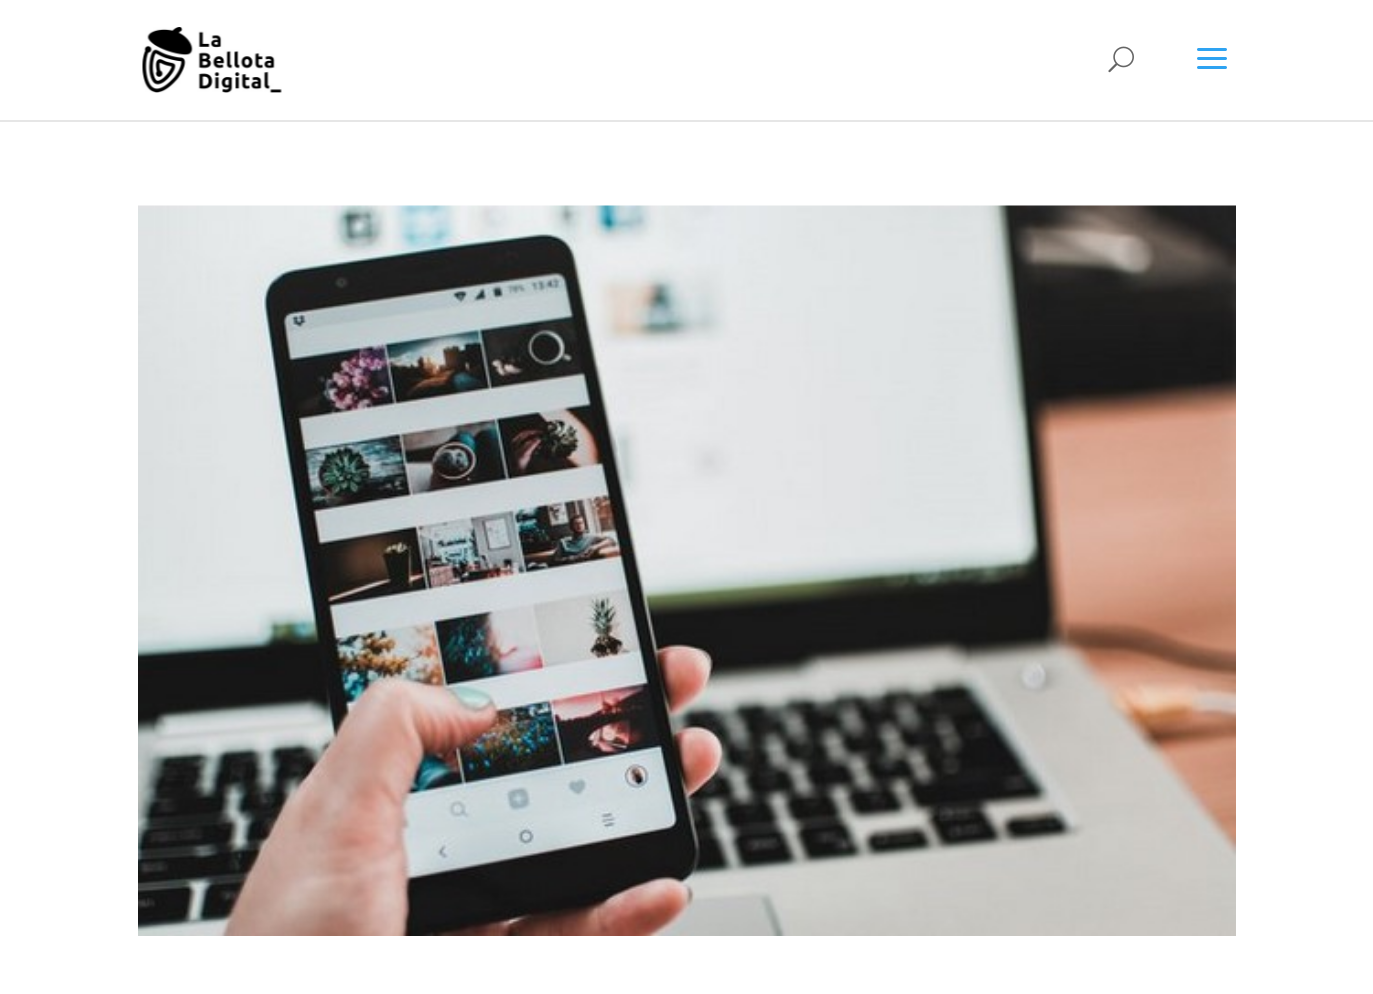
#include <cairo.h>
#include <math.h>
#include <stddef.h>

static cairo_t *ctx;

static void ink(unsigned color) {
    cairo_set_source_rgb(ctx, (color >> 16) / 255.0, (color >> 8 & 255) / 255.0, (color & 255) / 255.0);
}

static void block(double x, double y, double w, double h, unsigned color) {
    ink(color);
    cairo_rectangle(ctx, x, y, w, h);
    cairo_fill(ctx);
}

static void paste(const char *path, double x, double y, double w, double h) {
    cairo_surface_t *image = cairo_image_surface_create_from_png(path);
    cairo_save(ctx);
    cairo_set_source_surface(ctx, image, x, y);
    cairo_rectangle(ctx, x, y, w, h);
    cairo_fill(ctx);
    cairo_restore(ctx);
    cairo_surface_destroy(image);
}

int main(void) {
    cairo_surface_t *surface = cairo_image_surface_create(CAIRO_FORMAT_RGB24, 1373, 994);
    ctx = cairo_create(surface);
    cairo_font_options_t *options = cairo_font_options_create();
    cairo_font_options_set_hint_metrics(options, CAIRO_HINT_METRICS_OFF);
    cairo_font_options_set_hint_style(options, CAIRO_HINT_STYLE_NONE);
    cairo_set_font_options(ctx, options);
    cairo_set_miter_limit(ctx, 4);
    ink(0xffffff);
    cairo_paint(ctx);
    block(0, 120, 1373, 2, 0xe6e6e6);
    paste("pic1.png", 142, 27, 140, 66);
    paste("pic2.png", 1108, 46, 26, 27);
    paste("pic3.png", 1197, 48, 30, 21);
    paste("pic4.png", 138, 205, 1098, 731);
    cairo_surface_write_to_png(surface, "screenshot.png");
    cairo_font_options_destroy(options);
    cairo_destroy(ctx);
    cairo_surface_destroy(surface);
    return 0;
}
